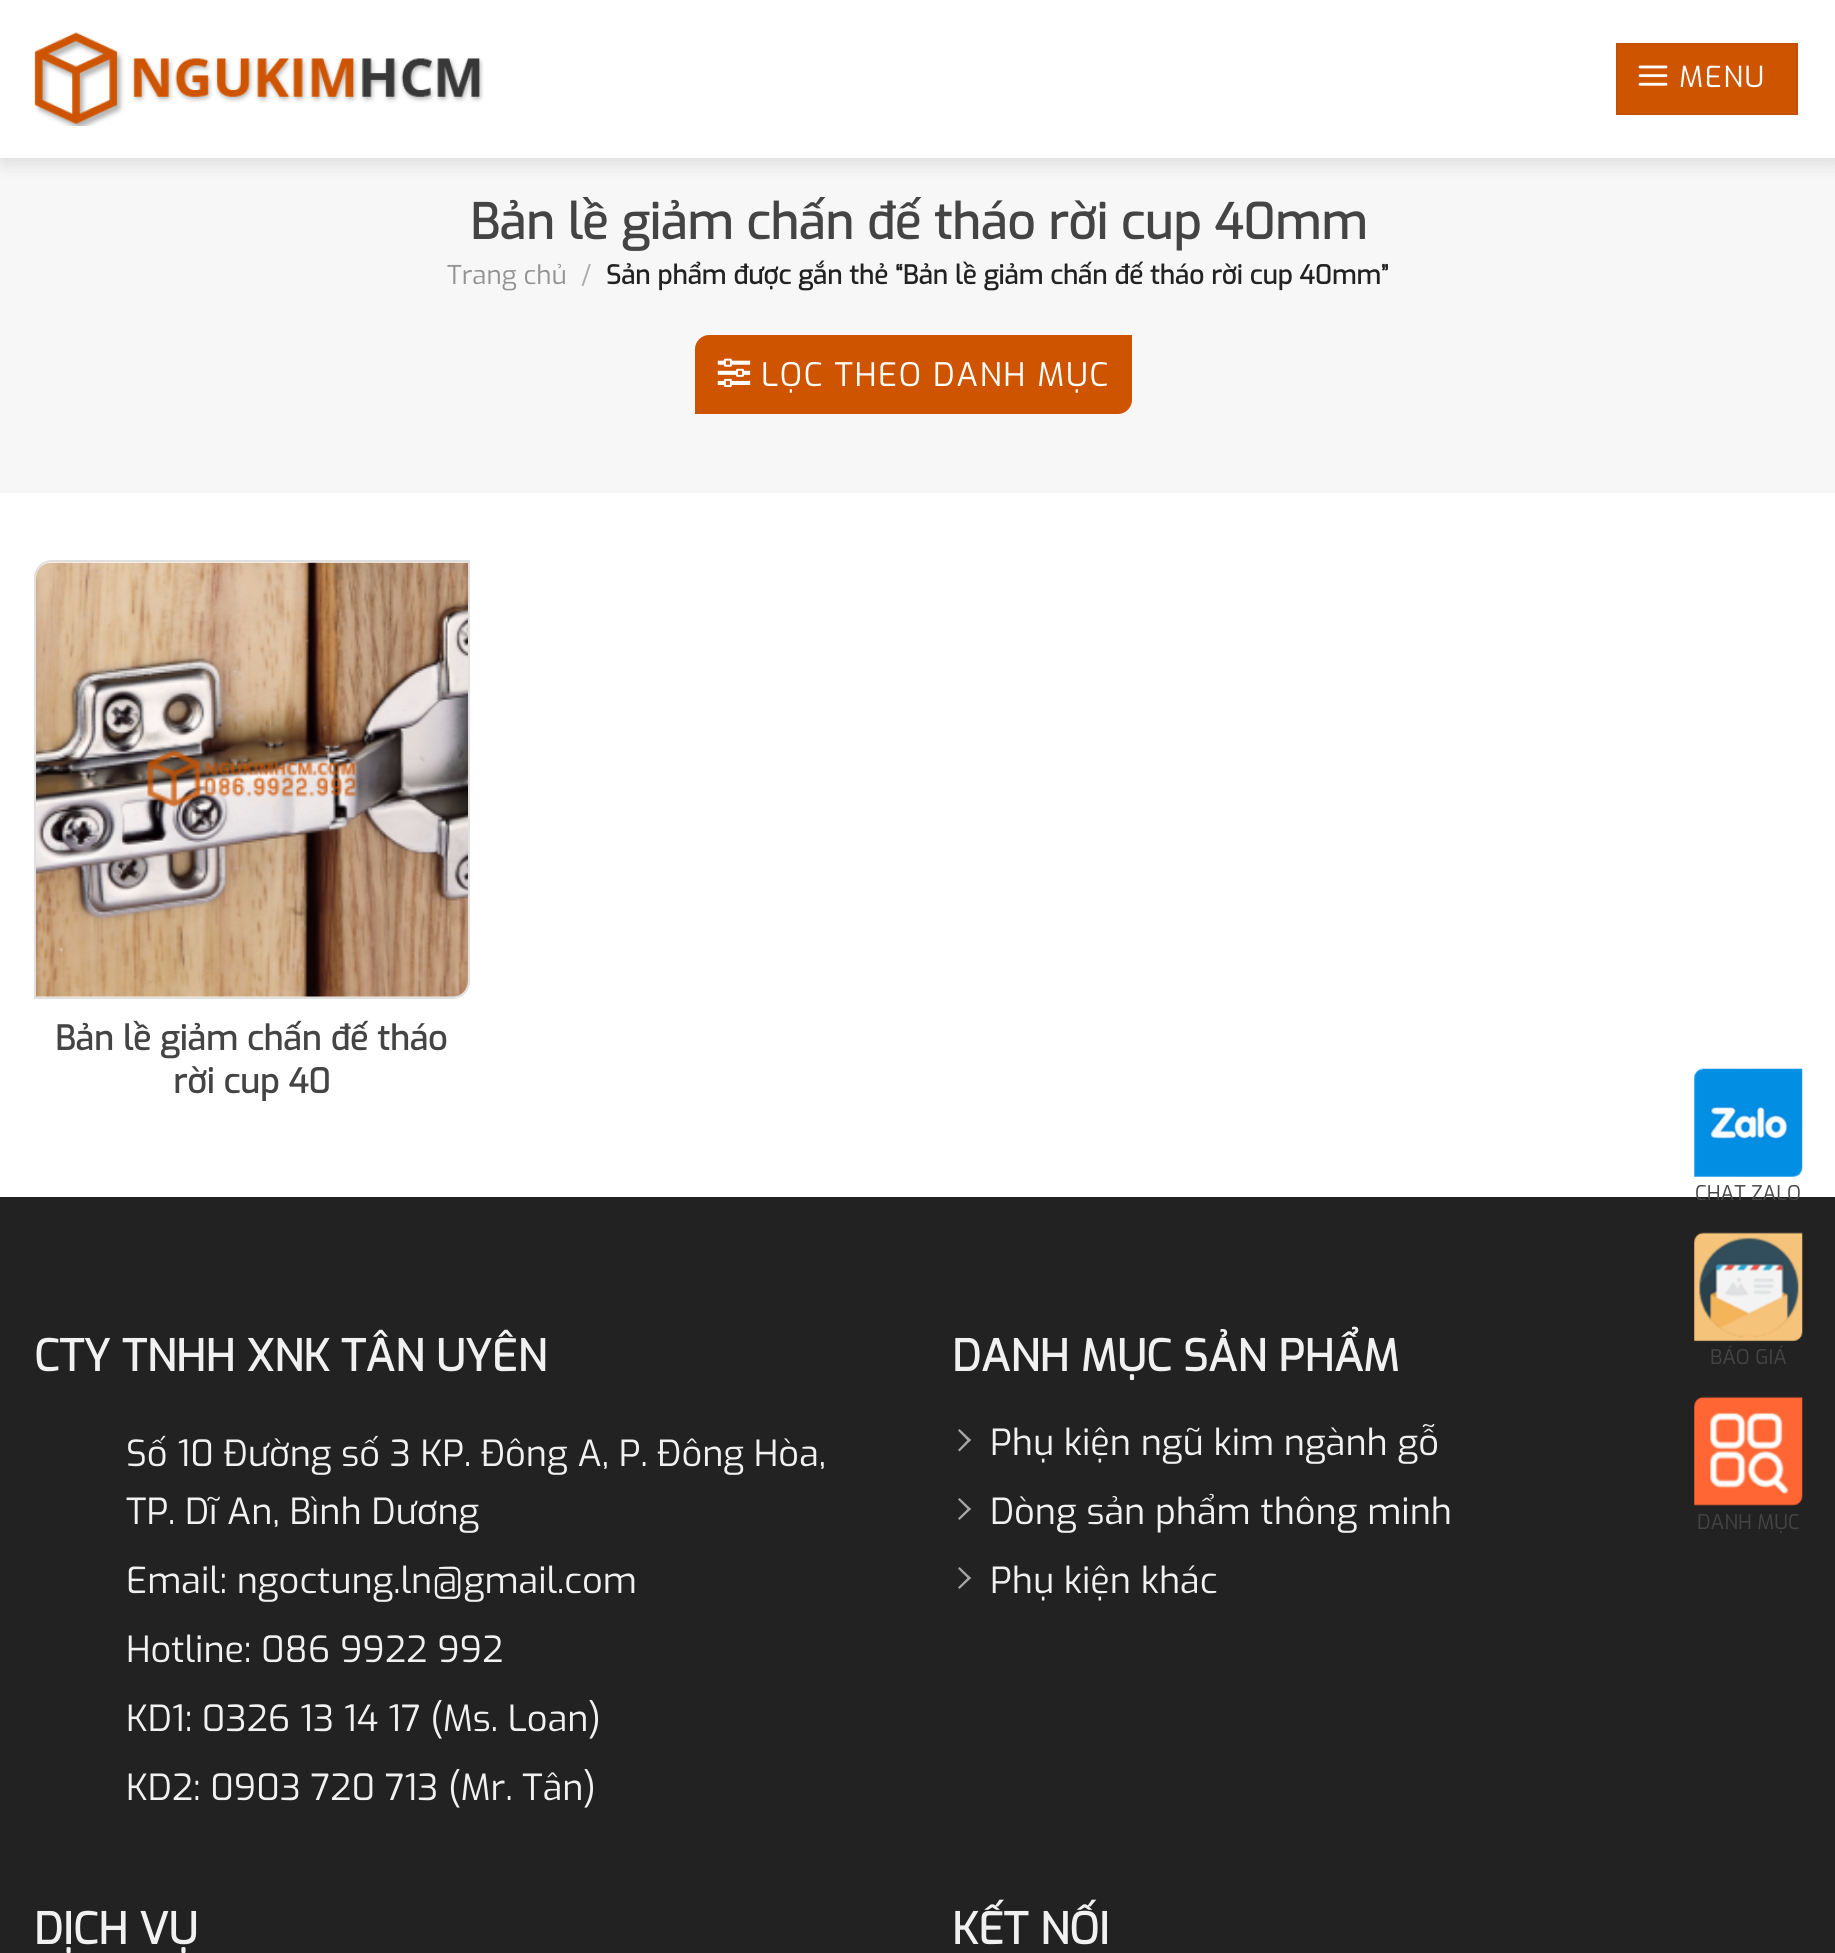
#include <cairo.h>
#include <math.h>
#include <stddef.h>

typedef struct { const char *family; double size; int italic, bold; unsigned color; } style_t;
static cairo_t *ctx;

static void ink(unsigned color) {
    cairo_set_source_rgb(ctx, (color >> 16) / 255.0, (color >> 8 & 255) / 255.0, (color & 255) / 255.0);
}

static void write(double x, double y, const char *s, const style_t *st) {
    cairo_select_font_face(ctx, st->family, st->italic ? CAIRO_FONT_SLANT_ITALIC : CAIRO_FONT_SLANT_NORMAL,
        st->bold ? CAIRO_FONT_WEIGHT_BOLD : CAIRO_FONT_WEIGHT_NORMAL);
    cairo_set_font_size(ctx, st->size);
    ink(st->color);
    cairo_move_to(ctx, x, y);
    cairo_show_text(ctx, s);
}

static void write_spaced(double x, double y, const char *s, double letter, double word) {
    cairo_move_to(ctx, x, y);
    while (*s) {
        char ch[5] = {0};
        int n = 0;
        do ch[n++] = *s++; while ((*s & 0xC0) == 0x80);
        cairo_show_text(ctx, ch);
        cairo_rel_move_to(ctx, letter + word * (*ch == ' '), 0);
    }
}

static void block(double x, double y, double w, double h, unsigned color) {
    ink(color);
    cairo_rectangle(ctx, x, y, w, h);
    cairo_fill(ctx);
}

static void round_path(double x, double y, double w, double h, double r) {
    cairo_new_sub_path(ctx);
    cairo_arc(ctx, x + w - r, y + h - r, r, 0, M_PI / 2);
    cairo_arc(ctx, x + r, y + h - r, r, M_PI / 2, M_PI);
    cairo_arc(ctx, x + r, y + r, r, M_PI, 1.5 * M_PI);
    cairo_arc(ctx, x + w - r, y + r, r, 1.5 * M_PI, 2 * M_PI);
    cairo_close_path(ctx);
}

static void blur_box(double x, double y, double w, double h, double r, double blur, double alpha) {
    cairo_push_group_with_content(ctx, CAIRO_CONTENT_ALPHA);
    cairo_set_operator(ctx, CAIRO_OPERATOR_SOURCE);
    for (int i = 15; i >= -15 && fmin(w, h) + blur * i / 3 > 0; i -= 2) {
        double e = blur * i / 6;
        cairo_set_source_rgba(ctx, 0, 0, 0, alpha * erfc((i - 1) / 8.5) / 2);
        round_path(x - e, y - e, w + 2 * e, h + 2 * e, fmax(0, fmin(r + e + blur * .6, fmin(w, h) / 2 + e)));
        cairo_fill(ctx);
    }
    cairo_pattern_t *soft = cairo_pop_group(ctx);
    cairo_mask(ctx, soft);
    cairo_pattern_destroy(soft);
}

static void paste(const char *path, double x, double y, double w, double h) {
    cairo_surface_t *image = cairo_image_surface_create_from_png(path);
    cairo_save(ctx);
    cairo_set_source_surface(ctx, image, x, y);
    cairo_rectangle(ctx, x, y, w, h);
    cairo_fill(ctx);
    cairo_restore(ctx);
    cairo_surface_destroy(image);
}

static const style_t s1 = {"Exo", 48.6, 0, 1, 0x444444};
static const style_t s2 = {"Exo", 25.9, 0, 0, 0x929292};
static const style_t s3 = {"Exo", 25.9, 0, 0, 0xacacac};
static const style_t s4 = {"Exo", 25.9, 0, 1, 0x222222};
static const style_t s5 = {"Exo", 33.75, 0, 1, 0x444444};
static const style_t s6 = {"Exo", 43.25, 0, 1, 0xf1f1f1};
static const style_t s7 = {"Exo", 36, 0, 0, 0xf1f1f1};
static const style_t s8 = {"Exo", 20.25, 0, 0, 0x444444};

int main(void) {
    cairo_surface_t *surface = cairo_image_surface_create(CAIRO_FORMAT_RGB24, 1835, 1953);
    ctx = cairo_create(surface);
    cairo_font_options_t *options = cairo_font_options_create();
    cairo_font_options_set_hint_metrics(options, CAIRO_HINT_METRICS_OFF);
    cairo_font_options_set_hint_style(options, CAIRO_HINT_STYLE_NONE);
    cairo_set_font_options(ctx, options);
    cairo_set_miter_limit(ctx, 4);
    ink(0xffffff);
    cairo_paint(ctx);
    block(0, 158, 1835, 335, 0xf7f7f7);
    ink(0x000000);
    blur_box(2, 2, 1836, 158, 0, 11, 0.15);
    block(0, 0, 1835, 158, 0xffffff);
    paste("pic1.png", 34, 32, 450, 94);
    ink(0xce5400);
    cairo_rectangle(ctx, 1617, 44, 180, 70);
    cairo_fill_preserve(ctx);
    ink(0xc45000);
    cairo_stroke(ctx);
    paste("pic2.png", 1638, 65, 30, 21);
    cairo_select_font_face(ctx, "Exo", CAIRO_FONT_SLANT_NORMAL, CAIRO_FONT_WEIGHT_NORMAL);
    cairo_set_font_size(ctx, 29);
    ink(0xffffff);
    write_spaced(1679, 87, "MENU", 1.5, 0);
    write(470, 239, "Bản lề giảm chấn đế tháo rời cup 40mm", &s1);
    write(447, 284, "Trang chủ", &s2);
    write(581, 284, "/", &s3);
    write(606, 284, "Sản phẩm được gắn thẻ “Bản lề giảm chấn đế tháo rời cup 40mm”", &s4);
    ink(0xce5400);
    cairo_new_path(ctx);
    cairo_move_to(ctx, 709, 335);
    cairo_line_to(ctx, 1132, 335);
    cairo_line_to(ctx, 1132, 400);
    cairo_curve_to(ctx, 1132, 407.5, 1125.5, 414, 1118, 414);
    cairo_line_to(ctx, 695, 414);
    cairo_line_to(ctx, 695, 349);
    cairo_curve_to(ctx, 695, 341.5, 701.5, 335, 709, 335);
    cairo_close_path(ctx);
    cairo_fill(ctx);
    paste("pic3.png", 717, 358, 34, 29);
    cairo_select_font_face(ctx, "Exo", CAIRO_FONT_SLANT_NORMAL, CAIRO_FONT_WEIGHT_NORMAL);
    cairo_set_font_size(ctx, 32.4);
    ink(0xffffff);
    write_spaced(761, 386, "LỌC THEO DANH MỤC", 1.6, 0);
    cairo_new_path(ctx);
    cairo_move_to(ctx, 52, 561);
    cairo_line_to(ctx, 469, 561);
    cairo_line_to(ctx, 469, 981);
    cairo_curve_to(ctx, 469, 990.5, 461.5, 998, 452, 998);
    cairo_line_to(ctx, 35, 998);
    cairo_line_to(ctx, 35, 578);
    cairo_curve_to(ctx, 35, 568.5, 42.5, 561, 52, 561);
    cairo_close_path(ctx);
    ink(0xe0e0e0);
    cairo_stroke(ctx);
    paste("pic4.png", 36, 562, 432, 435);
    write(55, 1050, "Bản lề giảm chấn đế tháo", &s5);
    write(173, 1093, "rời cup 40", &s5);
    block(0, 1199, 1835, 754, 0x222222);
    block(0, 1197, 1835, 2, 0x202020);
    write(34, 1371, "CTY TNHH XNK TÂN UYÊN", &s6);
    write(126, 1466, "Số 10 Đường số 3 KP. Đông A, P. Đông Hòa,", &s7);
    write(126, 1524, "TP. Dĩ An, Bình Dương", &s7);
    write(126, 1593, "Email: ngoctung.ln@gmail.com", &s7);
    write(126, 1662, "Hotline: 086 9922 992", &s7);
    write(126, 1731, "KD1: 0326 13 14 17 (Ms. Loan)", &s7);
    write(126, 1800, "KD2: 0903 720 713 (Mr. Tân)", &s7);
    write(952, 1371, "DANH MỤC SẢN PHẨM", &s6);
    ink(0xa7a7a7);
    cairo_new_path(ctx);
    cairo_move_to(ctx, 958, 1430.5);
    cairo_line_to(ctx, 959.5, 1429);
    cairo_line_to(ctx, 971, 1440);
    cairo_line_to(ctx, 969, 1442);
    cairo_close_path(ctx);
    cairo_fill(ctx);
    cairo_new_path(ctx);
    cairo_move_to(ctx, 958, 1450);
    cairo_line_to(ctx, 969, 1438.5);
    cairo_line_to(ctx, 971, 1440);
    cairo_line_to(ctx, 959.5, 1451.5);
    cairo_close_path(ctx);
    cairo_fill(ctx);
    write(990, 1455, "Phụ kiện ngũ kim ngành gỗ", &s7);
    ink(0xa7a7a7);
    cairo_new_path(ctx);
    cairo_move_to(ctx, 958, 1499.5);
    cairo_line_to(ctx, 959.5, 1498);
    cairo_line_to(ctx, 971, 1509);
    cairo_line_to(ctx, 969, 1510.5);
    cairo_close_path(ctx);
    cairo_fill(ctx);
    cairo_new_path(ctx);
    cairo_move_to(ctx, 958, 1518.5);
    cairo_line_to(ctx, 969, 1507.5);
    cairo_line_to(ctx, 971, 1509);
    cairo_line_to(ctx, 959.5, 1520);
    cairo_close_path(ctx);
    cairo_fill(ctx);
    write(990, 1524, "Dòng sản phẩm thông minh", &s7);
    ink(0xa7a7a7);
    cairo_new_path(ctx);
    cairo_move_to(ctx, 958, 1568.5);
    cairo_line_to(ctx, 959.5, 1567);
    cairo_line_to(ctx, 971, 1578);
    cairo_line_to(ctx, 969, 1579.5);
    cairo_close_path(ctx);
    cairo_fill(ctx);
    cairo_new_path(ctx);
    cairo_move_to(ctx, 958, 1587.5);
    cairo_line_to(ctx, 969, 1576.5);
    cairo_line_to(ctx, 971, 1578);
    cairo_line_to(ctx, 959.5, 1589);
    cairo_close_path(ctx);
    cairo_fill(ctx);
    write(990, 1593, "Phụ kiện khác", &s7);
    write(34, 1944, "DỊCH VỤ", &s6);
    write(952, 1944, "KẾT NỐI", &s6);
    paste("pic5.png", 1694, 1068, 109, 109);
    write(1695, 1200, "CHAT ZALO", &s8);
    paste("pic6.png", 1694, 1232, 109, 110);
    write(1710, 1364, "BÁO GIÁ", &s8);
    paste("pic7.png", 1694, 1396, 109, 110);
    write(1697, 1529, "DANH MỤC", &s8);
    cairo_surface_write_to_png(surface, "screenshot.png");
    cairo_font_options_destroy(options);
    cairo_destroy(ctx);
    cairo_surface_destroy(surface);
    return 0;
}
